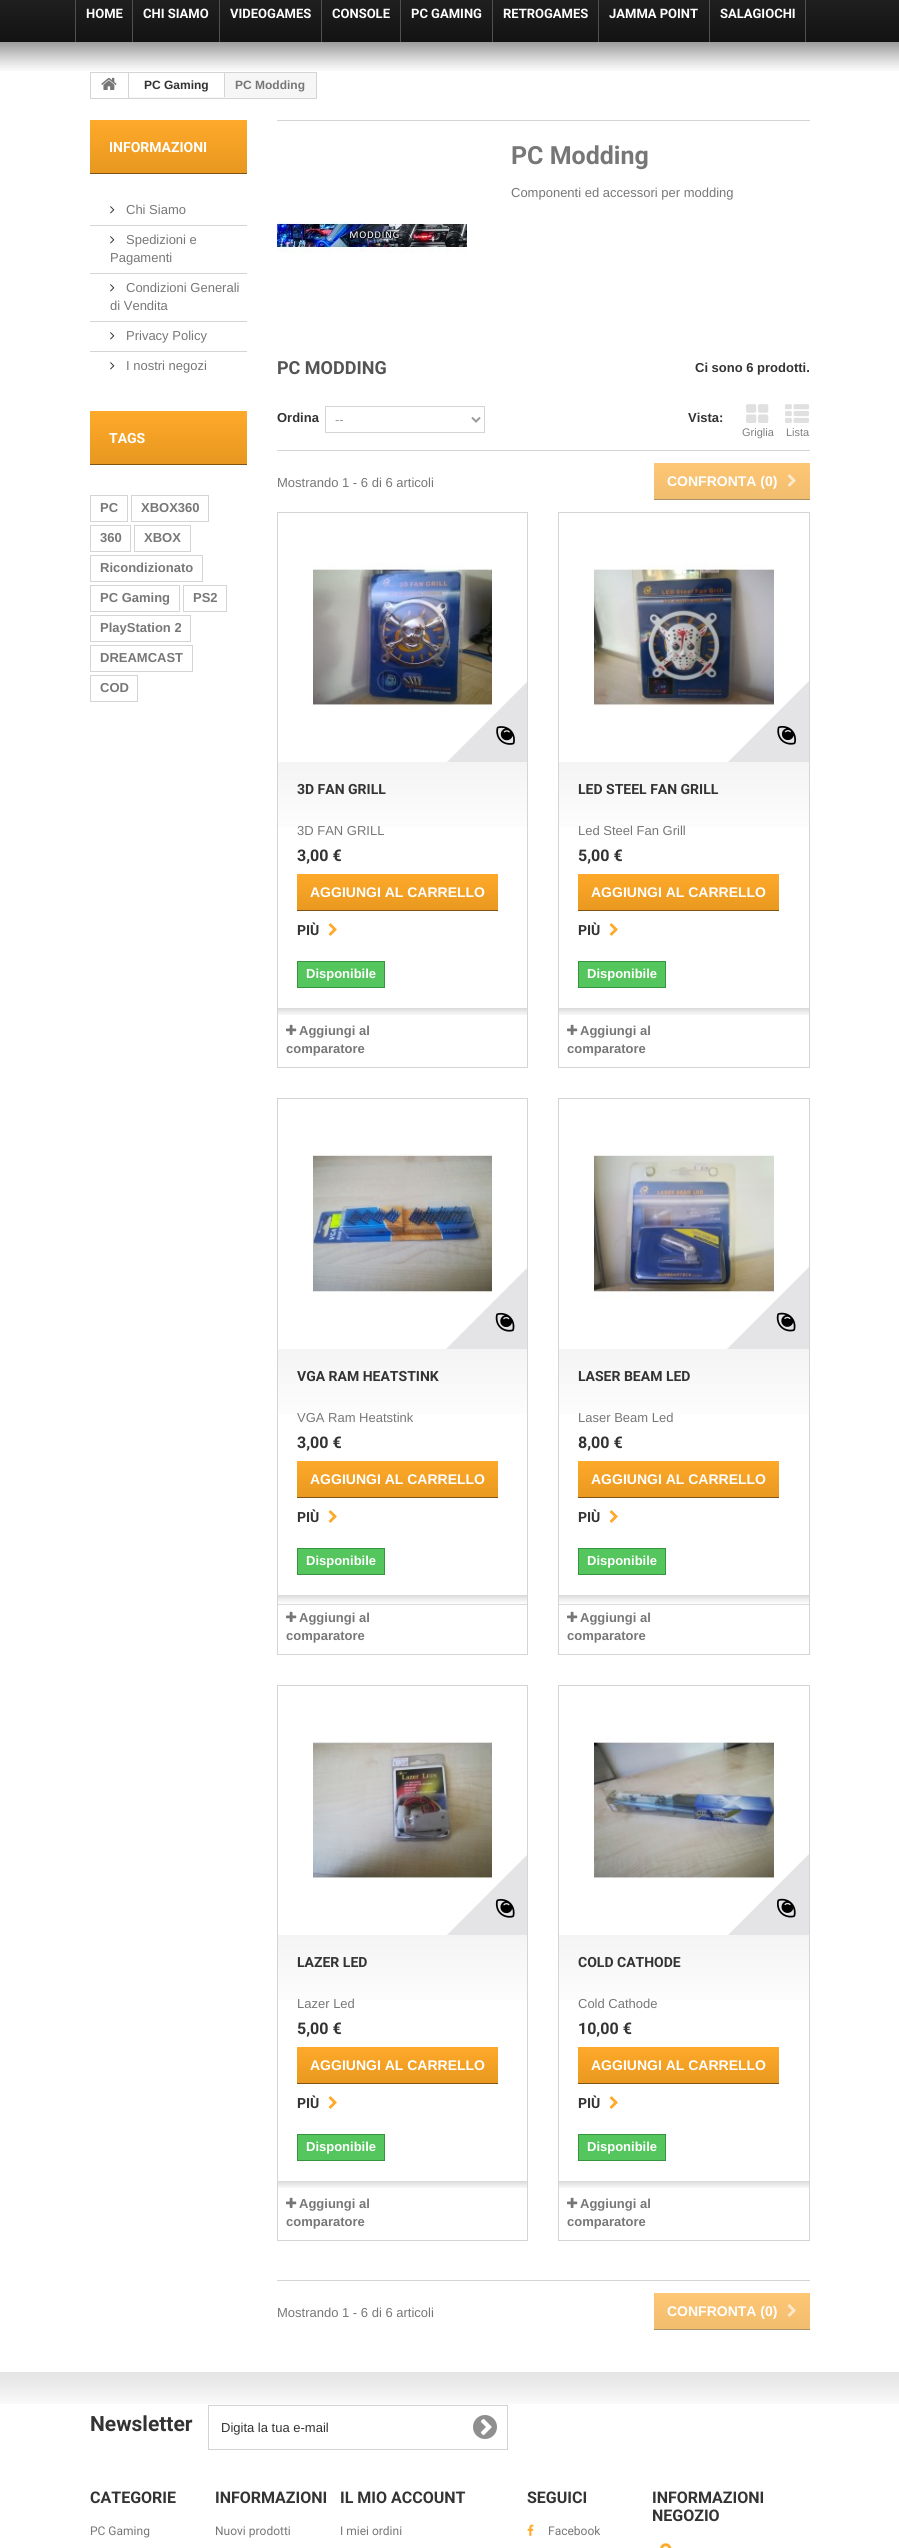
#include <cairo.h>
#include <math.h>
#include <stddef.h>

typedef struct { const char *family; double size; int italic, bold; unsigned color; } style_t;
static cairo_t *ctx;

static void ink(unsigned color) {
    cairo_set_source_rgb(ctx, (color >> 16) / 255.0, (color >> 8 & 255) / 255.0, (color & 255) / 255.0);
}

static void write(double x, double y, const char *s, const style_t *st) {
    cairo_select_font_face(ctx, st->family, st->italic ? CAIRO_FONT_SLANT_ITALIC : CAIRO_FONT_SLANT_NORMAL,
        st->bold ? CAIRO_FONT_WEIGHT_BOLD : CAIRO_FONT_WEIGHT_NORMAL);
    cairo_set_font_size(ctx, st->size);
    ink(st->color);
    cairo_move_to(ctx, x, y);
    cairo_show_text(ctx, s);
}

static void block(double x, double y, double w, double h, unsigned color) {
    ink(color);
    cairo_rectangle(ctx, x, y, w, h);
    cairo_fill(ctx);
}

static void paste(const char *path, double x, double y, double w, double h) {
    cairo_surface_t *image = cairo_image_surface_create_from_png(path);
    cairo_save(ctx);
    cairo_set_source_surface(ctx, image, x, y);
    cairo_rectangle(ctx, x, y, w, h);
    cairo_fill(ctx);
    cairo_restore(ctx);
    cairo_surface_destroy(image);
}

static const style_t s1 = {"Roboto", 13, 0, 1, 0xffffff};
static const style_t s2 = {"Liberation Sans", 12, 0, 1, 0x333333};
static const style_t s3 = {"Liberation Sans", 12, 0, 1, 0x777777};
static const style_t s4 = {"Roboto", 14, 0, 1, 0xffffff};
static const style_t s5 = {"Liberation Sans", 13, 0, 0, 0x777777};
static const style_t s6 = {"Liberation Sans", 13, 0, 1, 0x777777};
static const style_t s7 = {"Roboto", 25, 0, 1, 0x777777};
static const style_t s8 = {"Roboto", 18, 0, 1, 0x555454};
static const style_t s9 = {"Liberation Sans", 13, 0, 1, 0x333333};
static const style_t s10 = {"Liberation Sans", 13, 0, 0, 0x9c9b9b};
static const style_t s11 = {"Liberation Sans", 11, 0, 0, 0x808080};
static const style_t s12 = {"Liberation Sans", 14, 0, 1, 0xffffff};
static const style_t s13 = {"Roboto", 14, 0, 1, 0x333333};
static const style_t s14 = {"Roboto", 16, 0, 1, 0x333333};
static const style_t s15 = {"Liberation Sans", 13, 0, 1, 0xffffff};
static const style_t s16 = {"Roboto", 21, 0, 1, 0x333333};
static const style_t s17 = {"Liberation Sans", 13, 0, 0, 0x333333};
static const style_t s18 = {"Roboto", 12, 0, 0, 0x777777};

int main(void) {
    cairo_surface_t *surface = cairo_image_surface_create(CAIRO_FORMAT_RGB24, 899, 2548);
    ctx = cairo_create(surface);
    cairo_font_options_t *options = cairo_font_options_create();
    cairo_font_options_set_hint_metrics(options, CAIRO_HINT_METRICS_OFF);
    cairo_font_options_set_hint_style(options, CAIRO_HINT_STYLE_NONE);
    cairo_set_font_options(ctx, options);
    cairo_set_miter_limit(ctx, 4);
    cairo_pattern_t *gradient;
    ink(0xffffff);
    cairo_paint(ctx);
    gradient = cairo_pattern_create_linear(450, -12, 450, 42);
    cairo_pattern_add_color_stop_rgba(gradient, 0, 0.137, 0.137, 0.137, 1);
    cairo_pattern_add_color_stop_rgba(gradient, 1, 0.071, 0.071, 0.071, 1);
    cairo_set_source(ctx, gradient);
    cairo_pattern_destroy(gradient);
    cairo_rectangle(ctx, 0, 0, 899, 42);
    cairo_fill(ctx);
    block(132, 0, 1, 42, 0x505050);
    block(75, 0, 1, 42, 0x505050);
    write(86, 18, "HOME", &s1);
    block(219, 0, 1, 42, 0x505050);
    write(143, 18, "CHI SIAMO", &s1);
    block(321, 0, 1, 42, 0x505050);
    write(230, 18, "VIDEOGAMES", &s1);
    block(400, 0, 1, 42, 0x505050);
    write(332, 18, "CONSOLE", &s1);
    block(492, 0, 1, 42, 0x505050);
    write(411, 18, "PC GAMING", &s1);
    block(598, 0, 1, 42, 0x505050);
    write(503, 18, "RETROGAMES", &s1);
    block(709, 0, 1, 42, 0x505050);
    write(609, 18, "JAMMA POINT", &s1);
    block(805, 0, 1, 42, 0x505050);
    write(720, 18, "SALAGIOCHI", &s1);
    paste("pic1.png", 0, 42, 899, 29);
    block(129, 73, 187, 25, 0xf6f6f6);
    cairo_rectangle(ctx, 90.5, 72.5, 226, 26);
    ink(0xd6d4d4);
    cairo_set_line_width(ctx, 1);
    cairo_stroke(ctx);
    block(128, 73, 1, 25, 0xd6d4d4);
    paste("pic2.png", 101, 77, 16, 13);
    block(129, 73, 95, 24, 0xffffff);
    block(224, 73, 1, 24, 0xd6d4d4);
    write(144, 89, "PC Gaming", &s2);
    write(235, 89, "PC Modding", &s3);
    gradient = cairo_pattern_create_linear(169, 120, 169, 173);
    cairo_pattern_add_color_stop_rgba(gradient, 0, 0.996, 0.663, 0.165, 1);
    cairo_pattern_add_color_stop_rgba(gradient, 1, 0.91, 0.596, 0.125, 1);
    cairo_set_source(ctx, gradient);
    cairo_pattern_destroy(gradient);
    cairo_rectangle(ctx, 90, 120, 157, 53);
    cairo_fill(ctx);
    block(90, 173, 157, 1, 0x805412);
    write(109, 152, "INFORMAZIONI", &s4);
    paste("pic3.png", 110, 206, 5, 8);
    write(126, 214, "Chi Siamo", &s5);
    block(90, 225, 157, 1, 0xd6d4d4);
    paste("pic3.png", 110, 236, 5, 8);
    write(126, 244, "Spedizioni e", &s5);
    write(110, 262, "Pagamenti", &s5);
    block(90, 273, 157, 1, 0xd6d4d4);
    paste("pic3.png", 110, 284, 5, 8);
    write(126, 292, "Condizioni Generali", &s5);
    write(110, 310, "di Vendita", &s5);
    block(90, 321, 157, 1, 0xd6d4d4);
    paste("pic3.png", 110, 332, 5, 8);
    write(126, 340, "Privacy Policy", &s5);
    block(90, 351, 157, 1, 0xd6d4d4);
    paste("pic3.png", 110, 362, 5, 8);
    write(126, 370, "I nostri negozi", &s5);
    gradient = cairo_pattern_create_linear(169, 411, 169, 464);
    cairo_pattern_add_color_stop_rgba(gradient, 0, 0.996, 0.663, 0.165, 1);
    cairo_pattern_add_color_stop_rgba(gradient, 1, 0.91, 0.596, 0.125, 1);
    cairo_set_source(ctx, gradient);
    cairo_pattern_destroy(gradient);
    cairo_rectangle(ctx, 90, 411, 157, 53);
    cairo_fill(ctx);
    block(90, 464, 157, 1, 0x805412);
    write(109, 443, "TAGS", &s4);
    cairo_rectangle(ctx, 90.5, 495.5, 37, 26);
    ink(0xd6d4d4);
    cairo_stroke(ctx);
    write(100, 512, "PC", &s6);
    cairo_rectangle(ctx, 131.5, 495.5, 77, 26);
    ink(0xd6d4d4);
    cairo_stroke(ctx);
    write(141, 512, "XBOX360", &s6);
    cairo_rectangle(ctx, 90.5, 525.5, 40, 26);
    ink(0xd6d4d4);
    cairo_stroke(ctx);
    write(100, 542, "360", &s6);
    cairo_rectangle(ctx, 134.5, 525.5, 56, 26);
    ink(0xd6d4d4);
    cairo_stroke(ctx);
    write(144, 542, "XBOX", &s6);
    cairo_rectangle(ctx, 90.5, 555.5, 112, 26);
    ink(0xd6d4d4);
    cairo_stroke(ctx);
    write(100, 572, "Ricondizionato", &s6);
    cairo_rectangle(ctx, 90.5, 585.5, 89, 26);
    ink(0xd6d4d4);
    cairo_stroke(ctx);
    write(100, 602, "PC Gaming", &s6);
    cairo_rectangle(ctx, 183.5, 585.5, 43, 26);
    ink(0xd6d4d4);
    cairo_stroke(ctx);
    write(193, 602, "PS2", &s6);
    cairo_rectangle(ctx, 90.5, 615.5, 100, 26);
    ink(0xd6d4d4);
    cairo_stroke(ctx);
    write(100, 632, "PlayStation 2", &s6);
    cairo_rectangle(ctx, 90.5, 645.5, 102, 26);
    ink(0xd6d4d4);
    cairo_stroke(ctx);
    write(100, 662, "DREAMCAST", &s6);
    cairo_rectangle(ctx, 90.5, 675.5, 47, 26);
    ink(0xd6d4d4);
    cairo_stroke(ctx);
    write(100, 692, "COD", &s6);
    block(277, 120, 533, 1, 0xd6d4d4);
    write(511, 164, "PC Modding", &s7);
    write(511, 197, "Componenti ed accessori per modding", &s5);
    paste("pic4.png", 277, 221, 190, 32);
    write(277, 374, "PC MODDING", &s8);
    write(695, 372, "Ci sono 6 prodotti.", &s9);
    block(277, 450, 533, 1, 0xd6d4d4);
    write(277, 422, "Ordina", &s9);
    cairo_rectangle(ctx, 325.5, 406.5, 159, 26);
    ink(0xd6d4d4);
    cairo_stroke(ctx);
    cairo_new_path(ctx);
    cairo_move_to(ctx, 472, 417.5);
    cairo_line_to(ctx, 476, 421.5);
    cairo_line_to(ctx, 480, 417.5);
    ink(0x9c9b9b);
    cairo_set_line_width(ctx, 2);
    cairo_stroke(ctx);
    write(335, 424, "--", &s10);
    write(688, 422, "Vista:", &s9);
    paste("pic5.png", 746, 404, 23, 19);
    write(742, 436, "Griglia", &s11);
    paste("pic6.png", 785, 404, 24, 19);
    write(786, 436, "Lista", &s11);
    write(277, 487, "Mostrando 1 - 6 di 6 articoli", &s5);
    gradient = cairo_pattern_create_linear(732, 463, 732, 499);
    cairo_pattern_add_color_stop_rgba(gradient, 0, 0.996, 0.78, 0.459, 1);
    cairo_pattern_add_color_stop_rgba(gradient, 1, 0.945, 0.741, 0.431, 1);
    cairo_set_source(ctx, gradient);
    cairo_pattern_destroy(gradient);
    cairo_rectangle(ctx, 654, 463, 156, 36);
    cairo_fill(ctx);
    block(654, 499, 156, 1, 0xac9065);
    write(667, 486, "CONFRONTA (0)", &s12);
    paste("pic7.png", 787, 474, 9, 13);
    cairo_rectangle(ctx, 277.5, 512.5, 250, 555);
    ink(0xd6d4d4);
    cairo_set_line_width(ctx, 1);
    cairo_stroke(ctx);
    paste("pic8.png", 313, 563, 179, 145);
    cairo_save(ctx);
    cairo_rectangle(ctx, 312, 607, 215, 155);
    cairo_clip(ctx);
    ink(0xe4e4e6);
    cairo_new_path(ctx);
    cairo_move_to(ctx, 533, 676);
    cairo_line_to(ctx, 593, 736);
    cairo_line_to(ctx, 501, 828);
    cairo_line_to(ctx, 441, 768);
    cairo_close_path(ctx);
    cairo_fill(ctx);
    cairo_restore(ctx);
    paste("pic9.png", 496, 726, 19, 19);
    gradient = cairo_pattern_create_linear(403, 762, 403, 1008);
    cairo_pattern_add_color_stop_rgba(gradient, 0, 0.957, 0.957, 0.957, 1);
    cairo_pattern_add_color_stop_rgba(gradient, 0.34, 1, 1, 1, 1);
    cairo_set_source(ctx, gradient);
    cairo_pattern_destroy(gradient);
    cairo_rectangle(ctx, 278, 762, 249, 65);
    cairo_fill(ctx);
    write(297, 794, "3D FAN GRILL", &s13);
    write(297, 835, "3D FAN GRILL", &s5);
    write(297, 861, "3,00 €", &s14);
    gradient = cairo_pattern_create_linear(398, 874, 398, 910);
    cairo_pattern_add_color_stop_rgba(gradient, 0, 0.996, 0.663, 0.165, 1);
    cairo_pattern_add_color_stop_rgba(gradient, 1, 0.914, 0.6, 0.125, 1);
    cairo_set_source(ctx, gradient);
    cairo_pattern_destroy(gradient);
    cairo_rectangle(ctx, 297, 874, 201, 36);
    cairo_fill(ctx);
    block(297, 910, 201, 1, 0x805412);
    write(310, 897, "AGGIUNGI AL CARRELLO", &s12);
    write(297, 935, "PIÙ", &s13);
    paste("pic10.png", 328, 923, 9, 13);
    ink(0x55c65e);
    cairo_rectangle(ctx, 297.5, 961.5, 87, 26);
    cairo_fill_preserve(ctx);
    ink(0x36943e);
    cairo_stroke(ctx);
    write(306, 978, "Disponibile", &s15);
    paste("pic11.png", 278, 1008, 249, 7);
    paste("pic12.png", 286, 1024, 11, 11);
    write(299, 1035, "Aggiungi al", &s6);
    write(286, 1053, "comparatore", &s6);
    cairo_rectangle(ctx, 558.5, 512.5, 251, 555);
    ink(0xd6d4d4);
    cairo_stroke(ctx);
    paste("pic13.png", 594, 563, 180, 144);
    cairo_save(ctx);
    cairo_rectangle(ctx, 594, 607, 215, 155);
    cairo_clip(ctx);
    ink(0xe4e4e6);
    cairo_new_path(ctx);
    cairo_move_to(ctx, 814, 676);
    cairo_line_to(ctx, 874, 736);
    cairo_line_to(ctx, 782, 828);
    cairo_line_to(ctx, 722, 768);
    cairo_close_path(ctx);
    cairo_fill(ctx);
    cairo_restore(ctx);
    paste("pic14.png", 777, 725, 19, 20);
    gradient = cairo_pattern_create_linear(684, 762, 684, 1008);
    cairo_pattern_add_color_stop_rgba(gradient, 0, 0.957, 0.957, 0.957, 1);
    cairo_pattern_add_color_stop_rgba(gradient, 0.34, 1, 1, 1, 1);
    cairo_set_source(ctx, gradient);
    cairo_pattern_destroy(gradient);
    cairo_rectangle(ctx, 559, 762, 250, 65);
    cairo_fill(ctx);
    write(578, 794, "LED STEEL FAN GRILL", &s13);
    write(578, 835, "Led Steel Fan Grill", &s5);
    write(578, 861, "5,00 €", &s14);
    gradient = cairo_pattern_create_linear(679, 874, 679, 910);
    cairo_pattern_add_color_stop_rgba(gradient, 0, 0.996, 0.663, 0.165, 1);
    cairo_pattern_add_color_stop_rgba(gradient, 1, 0.914, 0.6, 0.125, 1);
    cairo_set_source(ctx, gradient);
    cairo_pattern_destroy(gradient);
    cairo_rectangle(ctx, 578, 874, 201, 36);
    cairo_fill(ctx);
    block(578, 910, 201, 1, 0x805412);
    write(591, 897, "AGGIUNGI AL CARRELLO", &s12);
    write(578, 935, "PIÙ", &s13);
    paste("pic10.png", 609, 923, 9, 13);
    ink(0x55c65e);
    cairo_rectangle(ctx, 578.5, 961.5, 87, 26);
    cairo_fill_preserve(ctx);
    ink(0x36943e);
    cairo_stroke(ctx);
    write(587, 978, "Disponibile", &s15);
    paste("pic15.png", 559, 1008, 250, 7);
    paste("pic12.png", 567, 1024, 11, 11);
    write(580, 1035, "Aggiungi al", &s6);
    write(567, 1053, "comparatore", &s6);
    cairo_rectangle(ctx, 277.5, 1098.5, 250, 556);
    ink(0xd6d4d4);
    cairo_stroke(ctx);
    paste("pic16.png", 313, 1154, 179, 140);
    cairo_save(ctx);
    cairo_rectangle(ctx, 312, 1194, 215, 155);
    cairo_clip(ctx);
    ink(0xe4e4e6);
    cairo_new_path(ctx);
    cairo_move_to(ctx, 533, 1262);
    cairo_line_to(ctx, 593, 1323);
    cairo_line_to(ctx, 501, 1415);
    cairo_line_to(ctx, 441, 1354);
    cairo_close_path(ctx);
    cairo_fill(ctx);
    cairo_restore(ctx);
    paste("pic17.png", 495, 1312, 20, 20);
    gradient = cairo_pattern_create_linear(403, 1349, 403, 1595);
    cairo_pattern_add_color_stop_rgba(gradient, 0, 0.957, 0.957, 0.957, 1);
    cairo_pattern_add_color_stop_rgba(gradient, 0.34, 1, 1, 1, 1);
    cairo_set_source(ctx, gradient);
    cairo_pattern_destroy(gradient);
    cairo_rectangle(ctx, 278, 1349, 249, 65);
    cairo_fill(ctx);
    write(297, 1381, "VGA RAM HEATSTINK", &s13);
    write(297, 1422, "VGA Ram Heatstink", &s5);
    write(297, 1448, "3,00 €", &s14);
    gradient = cairo_pattern_create_linear(398, 1461, 398, 1497);
    cairo_pattern_add_color_stop_rgba(gradient, 0, 0.996, 0.663, 0.165, 1);
    cairo_pattern_add_color_stop_rgba(gradient, 1, 0.914, 0.6, 0.125, 1);
    cairo_set_source(ctx, gradient);
    cairo_pattern_destroy(gradient);
    cairo_rectangle(ctx, 297, 1461, 201, 36);
    cairo_fill(ctx);
    block(297, 1497, 201, 1, 0x805412);
    write(310, 1484, "AGGIUNGI AL CARRELLO", &s12);
    write(297, 1522, "PIÙ", &s13);
    paste("pic10.png", 328, 1510, 9, 13);
    ink(0x55c65e);
    cairo_rectangle(ctx, 297.5, 1548.5, 87, 26);
    cairo_fill_preserve(ctx);
    ink(0x36943e);
    cairo_stroke(ctx);
    write(306, 1565, "Disponibile", &s15);
    paste("pic18.png", 278, 1595, 249, 10);
    paste("pic12.png", 286, 1611, 11, 11);
    write(299, 1622, "Aggiungi al", &s6);
    write(286, 1640, "comparatore", &s6);
    cairo_rectangle(ctx, 558.5, 1098.5, 251, 556);
    ink(0xd6d4d4);
    cairo_stroke(ctx);
    paste("pic19.png", 594, 1154, 180, 145);
    cairo_save(ctx);
    cairo_rectangle(ctx, 594, 1194, 215, 155);
    cairo_clip(ctx);
    ink(0xe4e4e6);
    cairo_new_path(ctx);
    cairo_move_to(ctx, 814, 1262);
    cairo_line_to(ctx, 874, 1323);
    cairo_line_to(ctx, 782, 1415);
    cairo_line_to(ctx, 722, 1354);
    cairo_close_path(ctx);
    cairo_fill(ctx);
    cairo_restore(ctx);
    paste("pic20.png", 776, 1312, 20, 20);
    gradient = cairo_pattern_create_linear(684, 1349, 684, 1595);
    cairo_pattern_add_color_stop_rgba(gradient, 0, 0.957, 0.957, 0.957, 1);
    cairo_pattern_add_color_stop_rgba(gradient, 0.34, 1, 1, 1, 1);
    cairo_set_source(ctx, gradient);
    cairo_pattern_destroy(gradient);
    cairo_rectangle(ctx, 559, 1349, 250, 65);
    cairo_fill(ctx);
    write(578, 1381, "LASER BEAM LED", &s13);
    write(578, 1422, "Laser Beam Led", &s5);
    write(578, 1448, "8,00 €", &s14);
    gradient = cairo_pattern_create_linear(679, 1461, 679, 1497);
    cairo_pattern_add_color_stop_rgba(gradient, 0, 0.996, 0.663, 0.165, 1);
    cairo_pattern_add_color_stop_rgba(gradient, 1, 0.914, 0.6, 0.125, 1);
    cairo_set_source(ctx, gradient);
    cairo_pattern_destroy(gradient);
    cairo_rectangle(ctx, 578, 1461, 201, 36);
    cairo_fill(ctx);
    block(578, 1497, 201, 1, 0x805412);
    write(591, 1484, "AGGIUNGI AL CARRELLO", &s12);
    write(578, 1522, "PIÙ", &s13);
    paste("pic10.png", 609, 1510, 9, 13);
    ink(0x55c65e);
    cairo_rectangle(ctx, 578.5, 1548.5, 87, 26);
    cairo_fill_preserve(ctx);
    ink(0x36943e);
    cairo_stroke(ctx);
    write(587, 1565, "Disponibile", &s15);
    paste("pic21.png", 559, 1595, 250, 10);
    paste("pic12.png", 567, 1611, 11, 11);
    write(580, 1622, "Aggiungi al", &s6);
    write(567, 1640, "comparatore", &s6);
    cairo_rectangle(ctx, 277.5, 1685.5, 250, 555);
    ink(0xd6d4d4);
    cairo_stroke(ctx);
    paste("pic22.png", 313, 1740, 179, 139);
    cairo_save(ctx);
    cairo_rectangle(ctx, 312, 1780, 215, 155);
    cairo_clip(ctx);
    ink(0xe4e4e6);
    cairo_new_path(ctx);
    cairo_move_to(ctx, 533, 1849);
    cairo_line_to(ctx, 593, 1909);
    cairo_line_to(ctx, 501, 2001);
    cairo_line_to(ctx, 441, 1941);
    cairo_close_path(ctx);
    cairo_fill(ctx);
    cairo_restore(ctx);
    paste("pic23.png", 495, 1899, 20, 19);
    gradient = cairo_pattern_create_linear(403, 1935, 403, 2181);
    cairo_pattern_add_color_stop_rgba(gradient, 0, 0.957, 0.957, 0.957, 1);
    cairo_pattern_add_color_stop_rgba(gradient, 0.34, 1, 1, 1, 1);
    cairo_set_source(ctx, gradient);
    cairo_pattern_destroy(gradient);
    cairo_rectangle(ctx, 278, 1935, 249, 65);
    cairo_fill(ctx);
    write(297, 1967, "LAZER LED", &s13);
    write(297, 2008, "Lazer Led", &s5);
    write(297, 2034, "5,00 €", &s14);
    gradient = cairo_pattern_create_linear(398, 2047, 398, 2083);
    cairo_pattern_add_color_stop_rgba(gradient, 0, 0.996, 0.663, 0.165, 1);
    cairo_pattern_add_color_stop_rgba(gradient, 1, 0.914, 0.6, 0.125, 1);
    cairo_set_source(ctx, gradient);
    cairo_pattern_destroy(gradient);
    cairo_rectangle(ctx, 297, 2047, 201, 36);
    cairo_fill(ctx);
    block(297, 2083, 201, 1, 0x805412);
    write(310, 2070, "AGGIUNGI AL CARRELLO", &s12);
    write(297, 2108, "PIÙ", &s13);
    paste("pic10.png", 328, 2096, 9, 13);
    ink(0x55c65e);
    cairo_rectangle(ctx, 297.5, 2134.5, 87, 26);
    cairo_fill_preserve(ctx);
    ink(0x36943e);
    cairo_stroke(ctx);
    write(306, 2151, "Disponibile", &s15);
    paste("pic11.png", 278, 2181, 249, 7);
    paste("pic12.png", 286, 2197, 11, 11);
    write(299, 2208, "Aggiungi al", &s6);
    write(286, 2226, "comparatore", &s6);
    cairo_rectangle(ctx, 558.5, 1685.5, 251, 555);
    ink(0xd6d4d4);
    cairo_stroke(ctx);
    paste("pic24.png", 594, 1736, 180, 143);
    cairo_save(ctx);
    cairo_rectangle(ctx, 594, 1780, 215, 155);
    cairo_clip(ctx);
    ink(0xe4e4e6);
    cairo_new_path(ctx);
    cairo_move_to(ctx, 814, 1849);
    cairo_line_to(ctx, 874, 1909);
    cairo_line_to(ctx, 782, 2001);
    cairo_line_to(ctx, 722, 1941);
    cairo_close_path(ctx);
    cairo_fill(ctx);
    cairo_restore(ctx);
    paste("pic25.png", 777, 1898, 19, 20);
    gradient = cairo_pattern_create_linear(684, 1935, 684, 2181);
    cairo_pattern_add_color_stop_rgba(gradient, 0, 0.957, 0.957, 0.957, 1);
    cairo_pattern_add_color_stop_rgba(gradient, 0.34, 1, 1, 1, 1);
    cairo_set_source(ctx, gradient);
    cairo_pattern_destroy(gradient);
    cairo_rectangle(ctx, 559, 1935, 250, 65);
    cairo_fill(ctx);
    write(578, 1967, "COLD CATHODE", &s13);
    write(578, 2008, "Cold Cathode", &s5);
    write(578, 2034, "10,00 €", &s14);
    gradient = cairo_pattern_create_linear(679, 2047, 679, 2083);
    cairo_pattern_add_color_stop_rgba(gradient, 0, 0.996, 0.663, 0.165, 1);
    cairo_pattern_add_color_stop_rgba(gradient, 1, 0.914, 0.6, 0.125, 1);
    cairo_set_source(ctx, gradient);
    cairo_pattern_destroy(gradient);
    cairo_rectangle(ctx, 578, 2047, 201, 36);
    cairo_fill(ctx);
    block(578, 2083, 201, 1, 0x805412);
    write(591, 2070, "AGGIUNGI AL CARRELLO", &s12);
    write(578, 2108, "PIÙ", &s13);
    paste("pic10.png", 609, 2096, 9, 13);
    ink(0x55c65e);
    cairo_rectangle(ctx, 578.5, 2134.5, 87, 26);
    cairo_fill_preserve(ctx);
    ink(0x36943e);
    cairo_stroke(ctx);
    write(587, 2151, "Disponibile", &s15);
    paste("pic15.png", 559, 2181, 250, 7);
    paste("pic12.png", 567, 2197, 11, 11);
    write(580, 2208, "Aggiungi al", &s6);
    write(567, 2226, "comparatore", &s6);
    block(277, 2280, 533, 1, 0xd6d4d4);
    write(277, 2317, "Mostrando 1 - 6 di 6 articoli", &s5);
    gradient = cairo_pattern_create_linear(732, 2293, 732, 2329);
    cairo_pattern_add_color_stop_rgba(gradient, 0, 0.996, 0.78, 0.459, 1);
    cairo_pattern_add_color_stop_rgba(gradient, 1, 0.945, 0.741, 0.431, 1);
    cairo_set_source(ctx, gradient);
    cairo_pattern_destroy(gradient);
    cairo_rectangle(ctx, 654, 2293, 156, 36);
    cairo_fill(ctx);
    block(654, 2329, 156, 1, 0xac9065);
    write(667, 2316, "CONFRONTA (0)", &s12);
    paste("pic7.png", 787, 2304, 9, 13);
    paste("pic26.png", 0, 2372, 899, 32);
    write(90, 2431, "Newsletter", &s16);
    cairo_rectangle(ctx, 208.5, 2405.5, 299, 44);
    ink(0xd3d3d3);
    cairo_stroke(ctx);
    write(221, 2432, "Digita la tua e-mail", &s17);
    paste("pic27.png", 473, 2415, 24, 24);
    write(90, 2503, "CATEGORIE", &s14);
    write(90, 2535, "PC Gaming", &s18);
    write(215, 2503, "INFORMAZIONI", &s14);
    write(215, 2535, "Nuovi prodotti", &s18);
    write(340, 2503, "IL MIO ACCOUNT", &s14);
    write(340, 2535, "I miei ordini", &s18);
    write(527, 2503, "SEGUICI", &s14);
    paste("pic28.png", 527, 2524, 7, 12);
    write(548, 2535, "Facebook", &s18);
    write(652, 2503, "INFORMAZIONI", &s14);
    write(652, 2521, "NEGOZIO", &s14);
    paste("pic29.png", 660, 2543, 12, 5);
    cairo_surface_write_to_png(surface, "screenshot.png");
    cairo_font_options_destroy(options);
    cairo_destroy(ctx);
    cairo_surface_destroy(surface);
    return 0;
}
